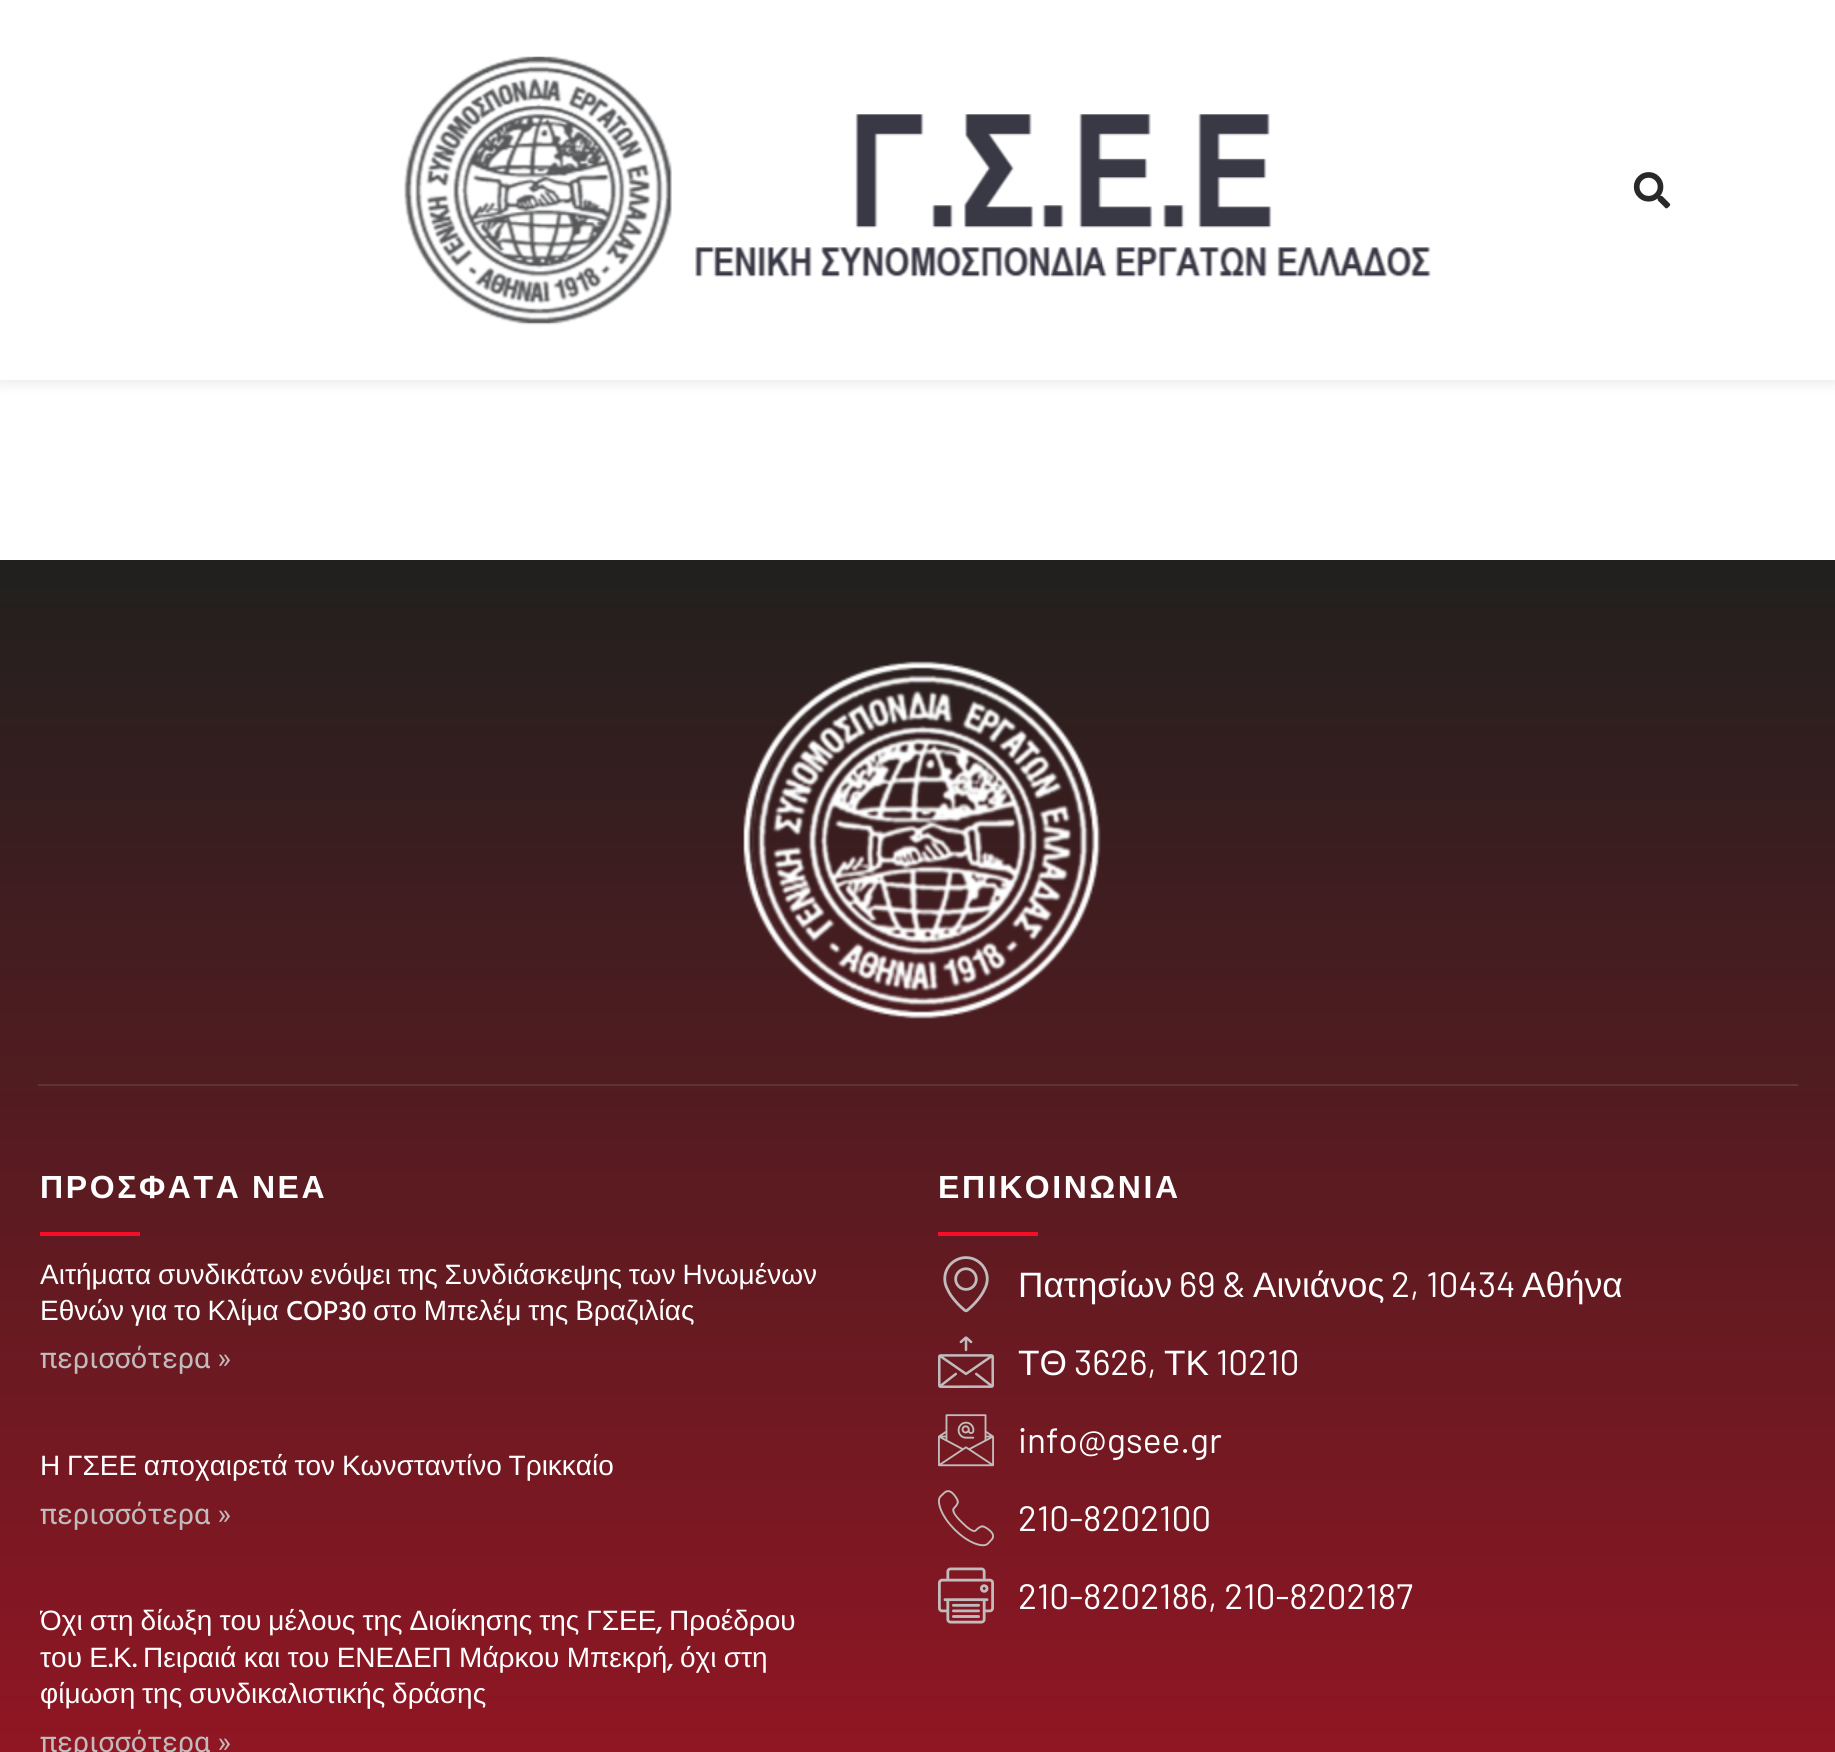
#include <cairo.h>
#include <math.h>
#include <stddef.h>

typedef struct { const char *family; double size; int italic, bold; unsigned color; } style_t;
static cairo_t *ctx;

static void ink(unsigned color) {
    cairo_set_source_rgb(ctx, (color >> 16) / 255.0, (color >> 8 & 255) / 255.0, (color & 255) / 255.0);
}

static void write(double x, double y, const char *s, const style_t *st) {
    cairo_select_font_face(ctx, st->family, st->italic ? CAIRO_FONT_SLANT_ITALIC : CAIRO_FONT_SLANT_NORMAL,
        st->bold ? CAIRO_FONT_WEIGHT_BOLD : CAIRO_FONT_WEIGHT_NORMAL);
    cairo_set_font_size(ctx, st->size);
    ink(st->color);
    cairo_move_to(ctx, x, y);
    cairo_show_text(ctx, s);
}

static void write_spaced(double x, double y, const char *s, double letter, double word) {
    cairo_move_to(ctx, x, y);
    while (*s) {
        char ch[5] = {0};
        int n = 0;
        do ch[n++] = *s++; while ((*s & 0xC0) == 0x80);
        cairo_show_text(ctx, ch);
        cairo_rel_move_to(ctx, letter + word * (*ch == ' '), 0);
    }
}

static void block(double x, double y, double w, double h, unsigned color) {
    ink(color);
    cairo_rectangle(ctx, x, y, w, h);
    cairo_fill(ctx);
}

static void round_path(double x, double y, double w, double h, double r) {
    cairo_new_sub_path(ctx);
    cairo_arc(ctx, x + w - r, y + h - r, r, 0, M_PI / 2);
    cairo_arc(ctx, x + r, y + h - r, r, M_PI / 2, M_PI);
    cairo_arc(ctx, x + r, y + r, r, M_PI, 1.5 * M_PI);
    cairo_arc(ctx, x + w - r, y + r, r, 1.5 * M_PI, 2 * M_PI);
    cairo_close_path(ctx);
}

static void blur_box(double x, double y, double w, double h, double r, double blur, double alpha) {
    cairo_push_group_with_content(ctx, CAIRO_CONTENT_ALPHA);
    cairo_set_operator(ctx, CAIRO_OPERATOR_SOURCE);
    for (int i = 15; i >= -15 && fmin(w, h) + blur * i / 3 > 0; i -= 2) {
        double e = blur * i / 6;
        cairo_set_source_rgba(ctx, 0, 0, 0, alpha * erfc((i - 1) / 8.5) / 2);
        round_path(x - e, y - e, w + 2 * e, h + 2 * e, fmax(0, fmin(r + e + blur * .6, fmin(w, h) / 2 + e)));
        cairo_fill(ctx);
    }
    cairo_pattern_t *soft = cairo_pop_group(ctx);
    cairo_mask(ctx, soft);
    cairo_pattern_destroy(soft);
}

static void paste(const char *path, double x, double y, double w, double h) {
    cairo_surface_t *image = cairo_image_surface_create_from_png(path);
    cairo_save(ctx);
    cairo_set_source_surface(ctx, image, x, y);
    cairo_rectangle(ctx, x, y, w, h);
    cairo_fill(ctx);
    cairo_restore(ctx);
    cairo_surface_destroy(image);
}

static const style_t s1 = {"Hind Vadodara Medium", 28, 0, 0, 0xffffff};
static const style_t s2 = {"Roboto", 28.75, 0, 0, 0xc2bbbc};
static const style_t s3 = {"Liberation Sans", 28, 0, 0, 0xffffff};
static const style_t s4 = {"Liberation Sans", 35.25, 0, 0, 0xffffff};
static const style_t s5 = {"Barlow", 35.25, 0, 0, 0xffffff};

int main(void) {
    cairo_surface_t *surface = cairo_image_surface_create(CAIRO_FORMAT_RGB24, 1835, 1752);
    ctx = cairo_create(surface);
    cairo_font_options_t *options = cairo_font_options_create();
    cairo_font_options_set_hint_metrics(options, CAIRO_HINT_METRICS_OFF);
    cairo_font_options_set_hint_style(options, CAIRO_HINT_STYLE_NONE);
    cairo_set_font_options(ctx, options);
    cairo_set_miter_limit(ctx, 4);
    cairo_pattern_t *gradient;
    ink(0xffffff);
    cairo_paint(ctx);
    ink(0x000000);
    blur_box(0, 2, 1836, 380, 0, 7, 0.1);
    block(0, 0, 1835, 380, 0xffffff);
    paste("pic1.png", 404, 56, 1027, 269);
    paste("pic2.png", 1633, 172, 38, 37);
    gradient = cairo_pattern_create_linear(918, 560, 918, 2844);
    cairo_pattern_add_color_stop_rgba(gradient, 0, 0.125, 0.125, 0.118, 1);
    cairo_pattern_add_color_stop_rgba(gradient, 1, 0.969, 0.051, 0.157, 1);
    cairo_set_source(ctx, gradient);
    cairo_pattern_destroy(gradient);
    cairo_rectangle(ctx, 0, 560, 1835, 1192);
    cairo_fill(ctx);
    paste("pic3.png", 743, 661, 358, 358);
    block(38, 1084, 1760, 2, 0x5e343a);
    cairo_select_font_face(ctx, "Liberation Sans", CAIRO_FONT_SLANT_NORMAL, CAIRO_FONT_WEIGHT_BOLD);
    cairo_set_font_size(ctx, 32);
    ink(0xffffff);
    write_spaced(40, 1198, "ΠΡΟΣΦΑΤΑ ΝΕΑ", 2.6, -1);
    block(40, 1232, 100, 4, 0xf70d28);
    cairo_select_font_face(ctx, "Liberation Sans", CAIRO_FONT_SLANT_NORMAL, CAIRO_FONT_WEIGHT_NORMAL);
    cairo_set_font_size(ctx, 28);
    ink(0xffffff);
    write_spaced(40, 1284, "Αιτήματα συνδικάτων ενόψει της Συνδιάσκεψης των Ηνωμένων", 0, -1);
    write_spaced(40, 1320, "Εθνών για το Κλίμα", 0, -1);
    write(286, 1320, "COP30", &s1);
    cairo_select_font_face(ctx, "Liberation Sans", CAIRO_FONT_SLANT_NORMAL, CAIRO_FONT_WEIGHT_NORMAL);
    write_spaced(373, 1320, "στο Μπελέμ της Βραζιλίας", 0, -1);
    write(40, 1368, "περισσότερα »", &s2);
    cairo_select_font_face(ctx, "Liberation Sans", CAIRO_FONT_SLANT_NORMAL, CAIRO_FONT_WEIGHT_NORMAL);
    cairo_set_font_size(ctx, 28);
    ink(0xffffff);
    write_spaced(40, 1475, "Η ΓΣΕΕ αποχαιρετά τον Κωνσταντίνο Τρικκαίο", 0, -1);
    write(40, 1524, "περισσότερα »", &s2);
    cairo_save(ctx);
    cairo_rectangle(ctx, 40, 1602, 798, 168);
    cairo_clip(ctx);
    cairo_select_font_face(ctx, "Liberation Sans", CAIRO_FONT_SLANT_NORMAL, CAIRO_FONT_WEIGHT_NORMAL);
    cairo_set_font_size(ctx, 28);
    ink(0xffffff);
    write_spaced(40, 1630, "Όχι στη δίωξη του μέλους της Διοίκησης της ΓΣΕΕ", 0, -0.75);
    cairo_restore(ctx);
    write(656, 1630, ",", &s1);
    write(669, 1630, "Προέδρου", &s3);
    write_spaced(40, 1667, "του Ε", 0, -0.5);
    write(108, 1667, ".", &s1);
    write(113, 1667, "Κ", &s3);
    write(132, 1667, ".", &s1);
    cairo_select_font_face(ctx, "Liberation Sans", CAIRO_FONT_SLANT_NORMAL, CAIRO_FONT_WEIGHT_NORMAL);
    write_spaced(143, 1667, "Πειραιά και του ΕΝΕΔΕΠ Μάρκου Μπεκρή", 0, -0.5);
    write(667, 1667, ",", &s1);
    cairo_select_font_face(ctx, "Liberation Sans", CAIRO_FONT_SLANT_NORMAL, CAIRO_FONT_WEIGHT_NORMAL);
    write_spaced(680, 1667, "όχι στη", 0, -0.5);
    write_spaced(40, 1703, "φίμωση της συνδικαλιστικής δράσης", 0, -1);
    write(40, 1752, "περισσότερα »", &s2);
    cairo_select_font_face(ctx, "Liberation Sans", CAIRO_FONT_SLANT_NORMAL, CAIRO_FONT_WEIGHT_BOLD);
    cairo_set_font_size(ctx, 32);
    ink(0xffffff);
    write_spaced(938, 1198, "ΕΠΙΚΟΙΝΩΝΙΑ", 2.6, 0);
    block(938, 1232, 100, 4, 0xf70d28);
    paste("pic4.png", 943, 1256, 46, 57);
    write(1018, 1297, "Πατησίων", &s4);
    write(1179, 1297, "69 &", &s5);
    write(1253, 1297, "Αινιάνος", &s4);
    write(1391, 1297, "2, 10434", &s5);
    write(1522, 1297, "Αθήνα", &s4);
    paste("pic5.png", 938, 1336, 56, 52);
    write(1018, 1375, "ΤΘ", &s4);
    write(1074, 1375, "3626,", &s5);
    write(1164, 1375, "ΤΚ", &s4);
    write(1216, 1375, "10210", &s5);
    paste("pic6.png", 938, 1414, 56, 53);
    write(1018, 1453, "info@gsee.gr", &s5);
    paste("pic7.png", 938, 1490, 56, 57);
    write(1018, 1531, "210-8202100", &s5);
    paste("pic8.png", 938, 1567, 56, 57);
    write(1018, 1609, "210-8202186, 210-8202187", &s5);
    cairo_surface_write_to_png(surface, "screenshot.png");
    cairo_font_options_destroy(options);
    cairo_destroy(ctx);
    cairo_surface_destroy(surface);
    return 0;
}
